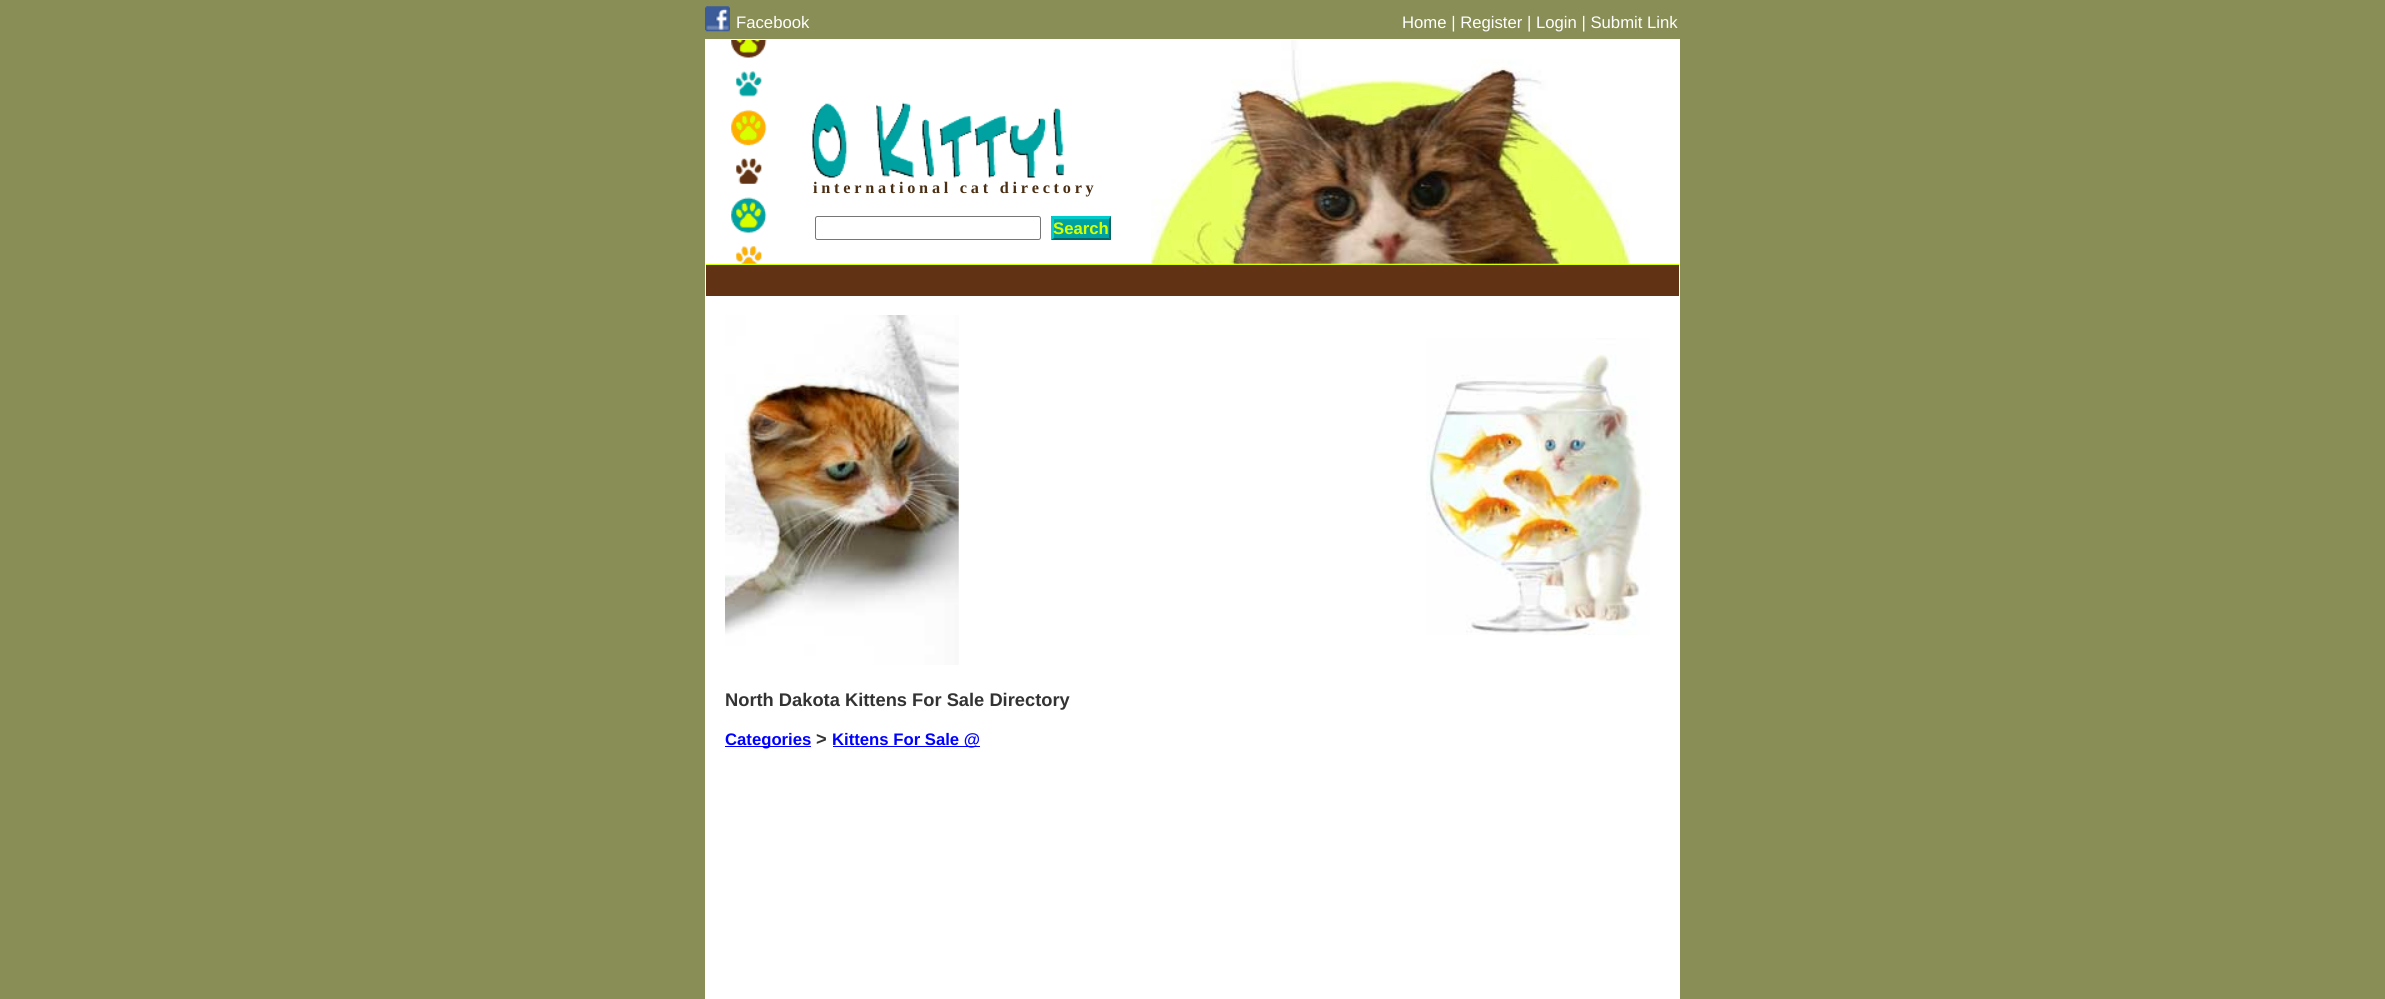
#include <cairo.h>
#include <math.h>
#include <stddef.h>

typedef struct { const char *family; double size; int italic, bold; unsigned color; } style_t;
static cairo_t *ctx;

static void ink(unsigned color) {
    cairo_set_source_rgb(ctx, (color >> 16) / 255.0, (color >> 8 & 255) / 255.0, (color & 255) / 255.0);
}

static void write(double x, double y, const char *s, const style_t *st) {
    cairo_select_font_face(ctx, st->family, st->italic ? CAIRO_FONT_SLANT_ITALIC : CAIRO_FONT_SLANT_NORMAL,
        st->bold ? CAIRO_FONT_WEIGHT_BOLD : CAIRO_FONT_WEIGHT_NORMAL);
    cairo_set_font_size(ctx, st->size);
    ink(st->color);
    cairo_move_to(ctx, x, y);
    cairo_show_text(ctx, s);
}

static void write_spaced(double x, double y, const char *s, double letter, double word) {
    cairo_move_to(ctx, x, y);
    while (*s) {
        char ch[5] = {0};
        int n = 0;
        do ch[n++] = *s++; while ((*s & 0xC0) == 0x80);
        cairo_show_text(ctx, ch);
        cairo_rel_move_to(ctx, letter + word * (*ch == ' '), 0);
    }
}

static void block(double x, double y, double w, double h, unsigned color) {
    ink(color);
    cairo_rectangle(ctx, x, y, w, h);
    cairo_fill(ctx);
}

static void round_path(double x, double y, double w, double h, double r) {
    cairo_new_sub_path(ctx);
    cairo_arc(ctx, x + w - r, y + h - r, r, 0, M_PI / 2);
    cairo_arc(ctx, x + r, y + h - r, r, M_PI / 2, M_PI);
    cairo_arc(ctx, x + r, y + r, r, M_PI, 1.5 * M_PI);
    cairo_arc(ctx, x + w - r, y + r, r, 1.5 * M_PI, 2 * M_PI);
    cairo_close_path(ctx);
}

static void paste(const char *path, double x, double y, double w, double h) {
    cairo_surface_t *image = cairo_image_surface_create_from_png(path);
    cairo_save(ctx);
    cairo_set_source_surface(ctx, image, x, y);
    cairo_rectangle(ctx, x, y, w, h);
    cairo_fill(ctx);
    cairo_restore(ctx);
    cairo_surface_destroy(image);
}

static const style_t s1 = {"Liberation Sans", 16.7, 0, 0, 0xffffff};
static const style_t s2 = {"Liberation Sans", 16.7, 0, 1, 0xd8ff00};
static const style_t s3 = {"Liberation Sans", 18.3, 0, 1, 0x333333};
static const style_t s4 = {"Liberation Sans", 16.7, 0, 1, 0x0000ff};

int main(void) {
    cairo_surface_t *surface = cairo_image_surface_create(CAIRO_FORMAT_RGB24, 2385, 999);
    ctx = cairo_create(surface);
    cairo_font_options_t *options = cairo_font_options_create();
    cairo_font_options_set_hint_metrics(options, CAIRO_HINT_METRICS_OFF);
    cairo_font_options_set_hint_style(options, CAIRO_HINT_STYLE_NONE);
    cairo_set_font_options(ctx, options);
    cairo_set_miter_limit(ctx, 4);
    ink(0x888e55);
    cairo_paint(ctx);
    paste("pic1.png", 705, 6, 25, 26);
    write(736, 28, "Facebook", &s1);
    write(1402, 28, "Home | Register | Login | Submit Link", &s1);
    block(705, 39, 975, 960, 0xffffff);
    block(706, 264, 973, 1, 0xd8ff00);
    paste("pic2.png", 731, 40, 36, 224);
    paste("pic3.png", 812, 102, 253, 76);
    cairo_select_font_face(ctx, "Liberation Serif", CAIRO_FONT_SLANT_NORMAL, CAIRO_FONT_WEIGHT_BOLD);
    cairo_set_font_size(ctx, 16.25);
    ink(0x4b2f14);
    write_spaced(813, 193, "international cat directory", 3.75, 0);
    round_path(815.5, 216.5, 225, 23, 2);
    ink(0x767676);
    cairo_set_line_width(ctx, 1);
    cairo_stroke(ctx);
    block(1051, 216, 60, 24, 0x00a2a1);
    ink(0x00cccc);
    cairo_new_path(ctx);
    cairo_move_to(ctx, 1051, 216);
    cairo_line_to(ctx, 1111, 216);
    cairo_line_to(ctx, 1109, 219);
    cairo_line_to(ctx, 1054, 219);
    cairo_close_path(ctx);
    cairo_fill(ctx);
    ink(0x006666);
    cairo_new_path(ctx);
    cairo_move_to(ctx, 1111, 216);
    cairo_line_to(ctx, 1111, 240);
    cairo_line_to(ctx, 1109, 237.5);
    cairo_line_to(ctx, 1109, 219);
    cairo_close_path(ctx);
    cairo_fill(ctx);
    cairo_new_path(ctx);
    cairo_move_to(ctx, 1111, 240);
    cairo_line_to(ctx, 1051, 240);
    cairo_line_to(ctx, 1054, 238);
    cairo_line_to(ctx, 1109, 238);
    cairo_close_path(ctx);
    cairo_fill(ctx);
    ink(0x00cccc);
    cairo_new_path(ctx);
    cairo_move_to(ctx, 1051, 240);
    cairo_line_to(ctx, 1051, 216);
    cairo_line_to(ctx, 1054, 219);
    cairo_line_to(ctx, 1054, 237.5);
    cairo_close_path(ctx);
    cairo_fill(ctx);
    write(1053, 234, "Search", &s2);
    paste("pic4.png", 1151, 40, 479, 224);
    block(706, 265, 973, 31, 0x613213);
    paste("pic5.png", 725, 315, 234, 350);
    paste("pic6.png", 1426, 338, 224, 297);
    write(725, 706, "North Dakota Kittens For Sale Directory", &s3);
    block(725, 746, 86, 1, 0x0000ff);
    write(725, 745, "Categories", &s4);
    write(816, 745, ">", &s3);
    block(833, 746, 147, 1, 0x0000ff);
    write(832, 745, "Kittens For Sale @", &s4);
    cairo_surface_write_to_png(surface, "screenshot.png");
    cairo_font_options_destroy(options);
    cairo_destroy(ctx);
    cairo_surface_destroy(surface);
    return 0;
}
